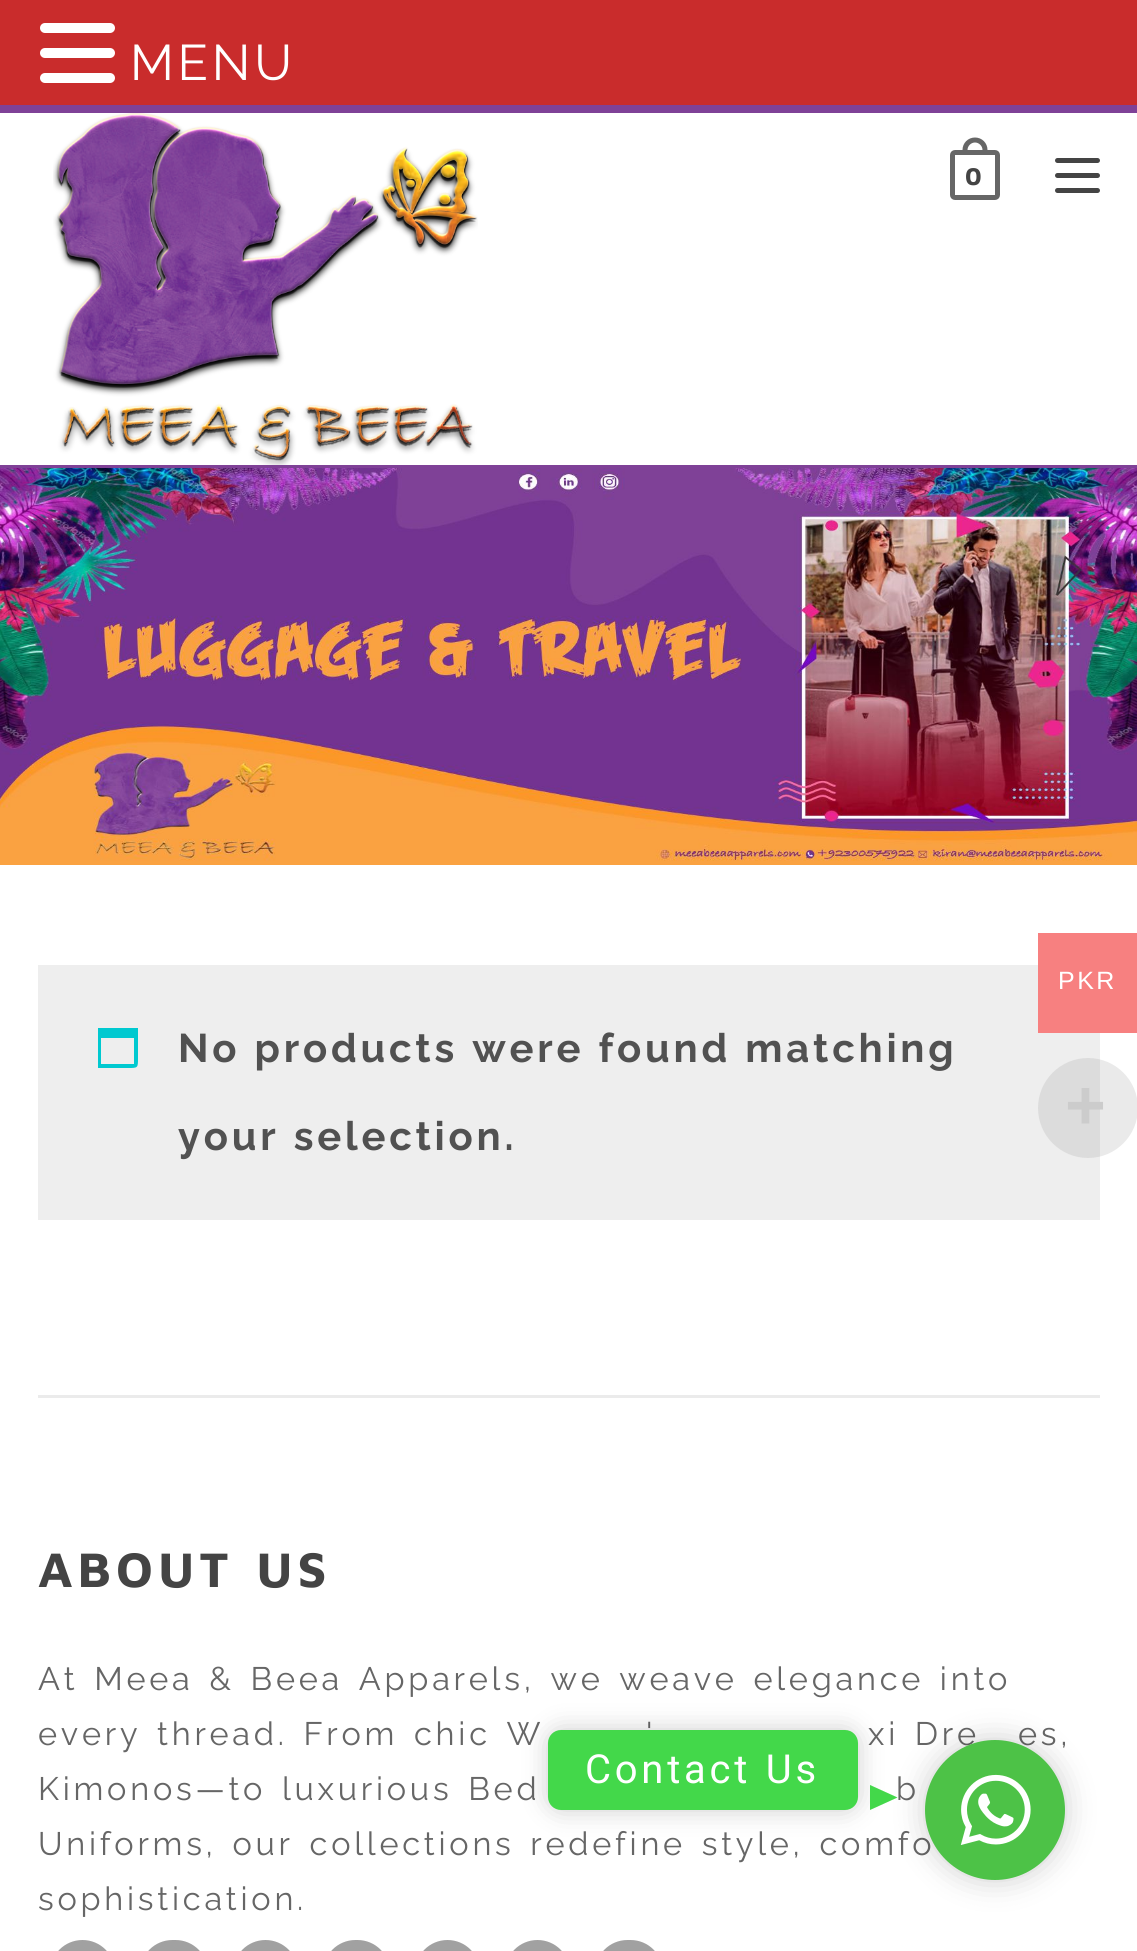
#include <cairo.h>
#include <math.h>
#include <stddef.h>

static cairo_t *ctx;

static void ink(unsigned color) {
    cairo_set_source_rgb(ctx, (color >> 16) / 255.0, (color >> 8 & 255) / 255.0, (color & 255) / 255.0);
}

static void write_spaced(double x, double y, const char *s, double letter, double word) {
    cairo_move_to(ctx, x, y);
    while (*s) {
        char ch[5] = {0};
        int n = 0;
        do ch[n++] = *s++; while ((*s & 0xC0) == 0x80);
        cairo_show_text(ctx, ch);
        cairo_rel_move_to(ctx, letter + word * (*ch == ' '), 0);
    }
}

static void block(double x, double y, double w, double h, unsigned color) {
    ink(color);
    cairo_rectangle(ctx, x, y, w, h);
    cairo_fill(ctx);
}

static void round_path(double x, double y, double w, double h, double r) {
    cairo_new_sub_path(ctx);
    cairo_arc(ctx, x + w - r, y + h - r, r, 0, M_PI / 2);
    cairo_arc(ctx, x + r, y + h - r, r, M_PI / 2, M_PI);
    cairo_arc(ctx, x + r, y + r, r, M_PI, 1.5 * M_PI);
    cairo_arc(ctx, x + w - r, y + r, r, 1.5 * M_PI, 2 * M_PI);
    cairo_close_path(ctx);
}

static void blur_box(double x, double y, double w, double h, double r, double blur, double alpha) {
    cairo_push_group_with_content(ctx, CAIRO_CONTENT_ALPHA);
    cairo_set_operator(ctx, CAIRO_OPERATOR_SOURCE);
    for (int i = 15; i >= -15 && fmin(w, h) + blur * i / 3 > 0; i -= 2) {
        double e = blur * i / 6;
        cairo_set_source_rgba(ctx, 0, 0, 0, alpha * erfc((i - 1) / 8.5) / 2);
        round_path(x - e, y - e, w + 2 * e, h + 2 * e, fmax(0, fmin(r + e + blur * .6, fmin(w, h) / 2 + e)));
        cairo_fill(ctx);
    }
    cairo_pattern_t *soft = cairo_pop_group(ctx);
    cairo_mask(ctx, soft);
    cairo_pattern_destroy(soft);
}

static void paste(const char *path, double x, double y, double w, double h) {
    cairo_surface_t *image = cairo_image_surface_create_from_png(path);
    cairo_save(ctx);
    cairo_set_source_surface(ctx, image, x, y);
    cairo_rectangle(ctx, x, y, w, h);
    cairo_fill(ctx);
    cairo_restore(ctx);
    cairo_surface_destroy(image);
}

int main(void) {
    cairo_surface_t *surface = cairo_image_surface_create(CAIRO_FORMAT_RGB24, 1137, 1951);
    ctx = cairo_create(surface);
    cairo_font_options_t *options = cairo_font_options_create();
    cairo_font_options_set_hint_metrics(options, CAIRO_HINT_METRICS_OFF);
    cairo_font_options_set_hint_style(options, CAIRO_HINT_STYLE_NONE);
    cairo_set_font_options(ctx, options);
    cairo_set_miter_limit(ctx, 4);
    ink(0xffffff);
    cairo_paint(ctx);
    block(0, 0, 1137, 105, 0xc92c2c);
    ink(0xffffff);
    round_path(40, 23, 75, 10, 5);
    cairo_fill(ctx);
    round_path(40, 48, 75, 10, 5);
    cairo_fill(ctx);
    round_path(40, 73, 75, 10, 5);
    cairo_fill(ctx);
    cairo_select_font_face(ctx, "Raleway", CAIRO_FONT_SLANT_NORMAL, CAIRO_FONT_WEIGHT_NORMAL);
    cairo_set_font_size(ctx, 50);
    write_spaced(130, 80, "MENU", 3.75, 0);
    block(0, 105, 1137, 8, 0x7f4197);
    block(0, 465, 1137, 3, 0x7f4197);
    paste("pic1.png", 53, 113, 425, 352);
    round_path(952.5, 152.5, 45, 45, 2.5);
    ink(0x666666);
    cairo_set_line_width(ctx, 5);
    cairo_stroke(ctx);
    cairo_set_fill_rule(ctx, CAIRO_FILL_RULE_EVEN_ODD);
    cairo_new_path(ctx);
    cairo_move_to(ctx, 975, 137.5);
    cairo_curve_to(ctx, 982, 137.5, 987.5, 143, 987.5, 150);
    cairo_line_to(ctx, 987.5, 152.5);
    cairo_line_to(ctx, 962.5, 152.5);
    cairo_line_to(ctx, 962.5, 150);
    cairo_curve_to(ctx, 962.5, 143, 968, 137.5, 975, 137.5);
    cairo_close_path(ctx);
    cairo_move_to(ctx, 975, 142.5);
    cairo_curve_to(ctx, 979, 142.5, 982.5, 146, 982.5, 150);
    cairo_line_to(ctx, 982.5, 152.5);
    cairo_line_to(ctx, 967.5, 152.5);
    cairo_line_to(ctx, 967.5, 150);
    cairo_curve_to(ctx, 967.5, 146, 971, 142.5, 975, 142.5);
    cairo_close_path(ctx);
    cairo_fill(ctx);
    cairo_select_font_face(ctx, "Maven Pro", CAIRO_FONT_SLANT_NORMAL, CAIRO_FONT_WEIGHT_BOLD);
    cairo_set_font_size(ctx, 25);
    ink(0x444444);
    write_spaced(965, 185, "0", 3.75, 0);
    round_path(1055, 158, 45, 5, 2.5);
    cairo_fill(ctx);
    round_path(1055, 173, 45, 5, 2.5);
    cairo_fill(ctx);
    round_path(1055, 188, 45, 5, 2.5);
    cairo_fill(ctx);
    paste("pic2.png", 0, 468, 1137, 393);
    paste("pic3.png", 0, 861, 1137, 4);
    block(38, 965, 1062, 255, 0xeeeeee);
    ink(0x00c9d0);
    cairo_set_fill_rule(ctx, CAIRO_FILL_RULE_WINDING);
    cairo_new_path(ctx);
    cairo_move_to(ctx, 134, 1038);
    cairo_line_to(ctx, 101, 1038);
    cairo_line_to(ctx, 101, 1064);
    cairo_line_to(ctx, 134, 1064);
    cairo_close_path(ctx);
    cairo_move_to(ctx, 138, 1028);
    cairo_line_to(ctx, 138, 1058);
    cairo_curve_to(ctx, 138, 1068, 138, 1068, 128, 1068);
    cairo_line_to(ctx, 98, 1068);
    cairo_line_to(ctx, 98, 1028);
    cairo_close_path(ctx);
    cairo_fill(ctx);
    cairo_select_font_face(ctx, "Raleway", CAIRO_FONT_SLANT_NORMAL, CAIRO_FONT_WEIGHT_BOLD);
    cairo_set_font_size(ctx, 40);
    ink(0x515151);
    write_spaced(178, 1062, "No products were found matching", 3.75, 1);
    write_spaced(178, 1150, "your selection.", 3.75, 1);
    block(38, 1395, 1062, 3, 0xebebeb);
    cairo_select_font_face(ctx, "Maven Pro", CAIRO_FONT_SLANT_NORMAL, CAIRO_FONT_WEIGHT_BOLD);
    cairo_set_font_size(ctx, 50);
    ink(0x444444);
    write_spaced(38, 1587, "ABOUT US", 5, 3.75);
    cairo_select_font_face(ctx, "Raleway", CAIRO_FONT_SLANT_NORMAL, CAIRO_FONT_WEIGHT_NORMAL);
    cairo_set_font_size(ctx, 32.5);
    ink(0x666666);
    write_spaced(38, 1690, "At Meea & Beea Apparels, we weave elegance into", 3.75, 3.75);
    write_spaced(38, 1745, "every thread. From chic W", 3.75, 3.75);
    write_spaced(646, 1745, "'", 3.75, 3.75);
    write_spaced(868, 1745, "xi Dre", 3.75, 3.75);
    write_spaced(1018, 1745, "es,", 3.75, 3.75);
    write_spaced(38, 1800, "Kimonos—to luxurious Bed", 3.75, 3.75);
    write_spaced(896, 1800, "b", 3.75, 3.75);
    write_spaced(38, 1855, "Uniforms, our collections redefine style, comfo", 3.75, 3.75);
    write_spaced(38, 1910, "sophistication.", 3.75, 0);
    ink(0xa1a1a1);
    round_path(50, 1940, 65, 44, 32.5);
    cairo_fill(ctx);
    round_path(140, 1940, 68, 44, 32.5);
    cairo_fill(ctx);
    round_path(233, 1940, 65, 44, 32.5);
    cairo_fill(ctx);
    round_path(323, 1940, 67, 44, 32.5);
    cairo_fill(ctx);
    round_path(415, 1940, 65, 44, 32.5);
    cairo_fill(ctx);
    round_path(505, 1940, 65, 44, 32.5);
    cairo_fill(ctx);
    round_path(595, 1940, 68, 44, 32.5);
    cairo_fill(ctx);
    block(1038, 933, 99, 100, 0xf78080);
    cairo_select_font_face(ctx, "Liberation Sans", CAIRO_FONT_SLANT_NORMAL, CAIRO_FONT_WEIGHT_NORMAL);
    cairo_set_font_size(ctx, 25);
    ink(0xffffff);
    write_spaced(1058, 989, "PKR", 2.5, 0);
    cairo_set_source_rgba(ctx, 0.6, 0.6, 0.6, 0.2);
    cairo_new_path(ctx);
    cairo_arc(ctx, 1088, 1108, 50, 0, 2 * M_PI);
    cairo_fill(ctx);
    cairo_select_font_face(ctx, "Liberation Sans", CAIRO_FONT_SLANT_NORMAL, CAIRO_FONT_WEIGHT_BOLD);
    cairo_set_font_size(ctx, 70);
    ink(0xcccccc);
    write_spaced(1065, 1129, "+", 3.75, 0);
    ink(0x000000);
    blur_box(548, 1730, 310, 80, 13, 12.5, 0.2);
    ink(0x43d84a);
    round_path(548, 1730, 310, 80, 13);
    cairo_fill(ctx);
    cairo_select_font_face(ctx, "Roboto", CAIRO_FONT_SLANT_NORMAL, CAIRO_FONT_WEIGHT_NORMAL);
    cairo_set_font_size(ctx, 40);
    ink(0xffffff);
    write_spaced(585, 1783, "Contact Us", 3.75, 1);
    ink(0x000000);
    blur_box(925, 1740, 140, 140, 70, 15, 0.2);
    ink(0x4dc247);
    cairo_arc(ctx, 995, 1810, 70, 0, 2 * M_PI);
    cairo_fill(ctx);
    paste("pic4.png", 960, 1774, 71, 71);
    ink(0x43d84a);
    cairo_new_path(ctx);
    cairo_move_to(ctx, 870, 1810);
    cairo_line_to(ctx, 870, 1785);
    cairo_line_to(ctx, 897.5, 1797.5);
    cairo_close_path(ctx);
    cairo_fill(ctx);
    cairo_surface_write_to_png(surface, "screenshot.png");
    cairo_font_options_destroy(options);
    cairo_destroy(ctx);
    cairo_surface_destroy(surface);
    return 0;
}
